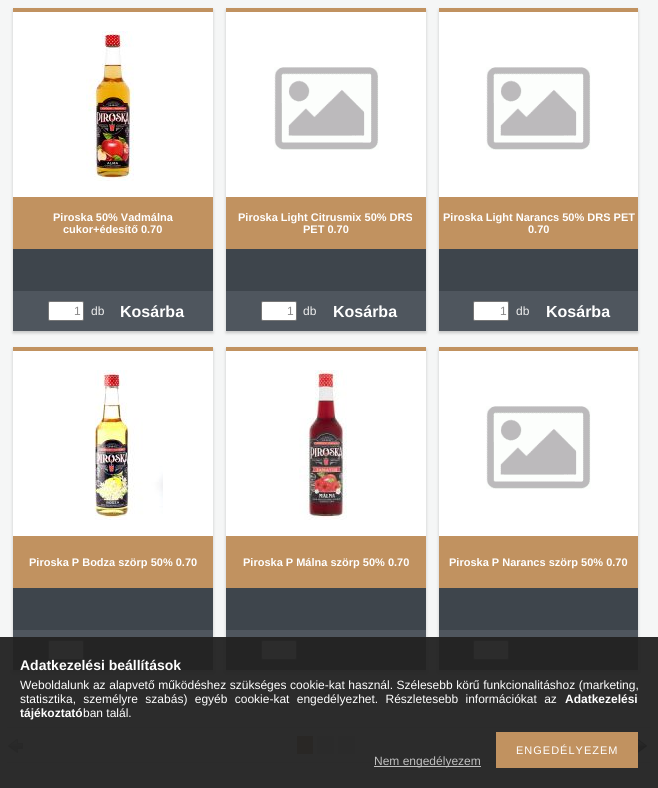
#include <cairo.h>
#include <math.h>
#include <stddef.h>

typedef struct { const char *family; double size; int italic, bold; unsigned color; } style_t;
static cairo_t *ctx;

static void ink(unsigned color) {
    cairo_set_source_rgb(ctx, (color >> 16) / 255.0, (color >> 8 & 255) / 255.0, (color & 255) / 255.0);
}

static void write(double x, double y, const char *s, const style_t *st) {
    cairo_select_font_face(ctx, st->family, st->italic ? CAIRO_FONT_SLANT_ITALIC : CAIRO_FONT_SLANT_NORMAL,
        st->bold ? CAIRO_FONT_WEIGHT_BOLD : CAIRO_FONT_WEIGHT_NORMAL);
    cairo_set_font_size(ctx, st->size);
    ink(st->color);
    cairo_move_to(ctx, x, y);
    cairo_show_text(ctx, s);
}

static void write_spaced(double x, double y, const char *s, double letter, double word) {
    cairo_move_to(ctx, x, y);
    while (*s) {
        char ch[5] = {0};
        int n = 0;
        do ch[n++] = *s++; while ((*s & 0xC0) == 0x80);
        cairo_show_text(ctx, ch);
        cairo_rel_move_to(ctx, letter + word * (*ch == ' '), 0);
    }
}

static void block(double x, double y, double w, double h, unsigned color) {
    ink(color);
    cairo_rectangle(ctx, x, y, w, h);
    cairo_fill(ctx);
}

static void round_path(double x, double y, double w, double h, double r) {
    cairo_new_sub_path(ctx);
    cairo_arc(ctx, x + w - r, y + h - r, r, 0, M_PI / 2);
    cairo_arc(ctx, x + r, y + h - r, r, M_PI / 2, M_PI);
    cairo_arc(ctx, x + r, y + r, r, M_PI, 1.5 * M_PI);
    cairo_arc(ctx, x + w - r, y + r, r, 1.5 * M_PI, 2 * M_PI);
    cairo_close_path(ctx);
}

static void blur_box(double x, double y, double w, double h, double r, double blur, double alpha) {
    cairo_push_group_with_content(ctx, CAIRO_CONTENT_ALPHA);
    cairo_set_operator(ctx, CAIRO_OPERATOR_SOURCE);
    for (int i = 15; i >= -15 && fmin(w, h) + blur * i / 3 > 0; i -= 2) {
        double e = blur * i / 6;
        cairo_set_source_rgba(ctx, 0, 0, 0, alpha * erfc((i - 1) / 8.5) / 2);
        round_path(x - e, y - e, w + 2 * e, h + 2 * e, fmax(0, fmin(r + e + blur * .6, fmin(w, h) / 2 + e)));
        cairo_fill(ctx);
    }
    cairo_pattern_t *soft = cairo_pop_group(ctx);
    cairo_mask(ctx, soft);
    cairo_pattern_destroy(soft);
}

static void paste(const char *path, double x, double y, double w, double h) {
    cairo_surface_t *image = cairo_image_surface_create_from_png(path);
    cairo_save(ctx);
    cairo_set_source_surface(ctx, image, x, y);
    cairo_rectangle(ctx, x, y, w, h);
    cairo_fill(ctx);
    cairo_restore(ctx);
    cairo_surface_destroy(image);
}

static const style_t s1 = {"Liberation Sans", 11, 0, 1, 0xffffff};
static const style_t s2 = {"Liberation Sans", 12, 0, 0, 0x8b8a8a};
static const style_t s3 = {"Liberation Sans", 12, 0, 0, 0xefefef};
static const style_t s4 = {"Liberation Sans", 16, 0, 1, 0xffffff};
static const style_t s5 = {"Liberation Sans", 14, 0, 1, 0xffffff};
static const style_t s6 = {"Liberation Sans", 12, 0, 1, 0xffffff};
static const style_t s7 = {"Liberation Sans", 12, 0, 0, 0xffffff};
static const style_t s8 = {"Liberation Sans", 12, 0, 0, 0xc0c0c0};

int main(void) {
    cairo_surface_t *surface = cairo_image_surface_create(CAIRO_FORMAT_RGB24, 658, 788);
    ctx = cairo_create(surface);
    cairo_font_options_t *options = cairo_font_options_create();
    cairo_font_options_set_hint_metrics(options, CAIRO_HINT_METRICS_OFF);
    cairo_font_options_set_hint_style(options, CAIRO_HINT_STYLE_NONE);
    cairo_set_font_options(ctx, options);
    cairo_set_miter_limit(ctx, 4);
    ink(0xf5f6f6);
    cairo_paint(ctx);
    ink(0x000000);
    blur_box(13, 10, 200, 323, 0, 1.5, 0.2);
    block(13, 8, 200, 4, 0xc19260);
    block(13, 12, 200, 185, 0xffffff);
    paste("pic1.png", 86, 31, 48, 150);
    block(13, 197, 200, 52, 0xc19260);
    write(53, 221, "Piroska 50% Vadmálna", &s1);
    write(63, 233, "cukor+édesítő 0.70", &s1);
    block(13, 249, 200, 42, 0x3e454c);
    block(13, 291, 200, 40, 0x4f565e);
    ink(0xffffff);
    round_path(48.5, 301.5, 35, 19, 1.5);
    cairo_fill_preserve(ctx);
    ink(0x767676);
    cairo_set_line_width(ctx, 1);
    cairo_stroke(ctx);
    write(74, 315, "1", &s2);
    write(91, 315, "db", &s3);
    write(120, 317, "Kosárba", &s4);
    ink(0x000000);
    blur_box(226, 10, 200, 323, 0, 1.5, 0.2);
    block(226, 8, 200, 4, 0xc19260);
    block(226, 12, 200, 185, 0xffffff);
    paste("pic2.png", 274, 67, 105, 83);
    block(226, 197, 200, 52, 0xc19260);
    write(238, 221, "Piroska Light Citrusmix 50% DRS", &s1);
    write(303, 233, "PET 0.70", &s1);
    block(226, 249, 200, 42, 0x3e454c);
    block(226, 291, 200, 40, 0x4f565e);
    ink(0xffffff);
    round_path(261.5, 301.5, 35, 19, 1.5);
    cairo_fill_preserve(ctx);
    ink(0x767676);
    cairo_stroke(ctx);
    write(287, 315, "1", &s2);
    write(303, 315, "db", &s3);
    write(333, 317, "Kosárba", &s4);
    ink(0x000000);
    blur_box(439, 10, 199, 323, 0, 1.5, 0.2);
    block(439, 8, 199, 4, 0xc19260);
    block(439, 12, 199, 185, 0xffffff);
    paste("pic2.png", 486, 67, 105, 83);
    block(439, 197, 199, 52, 0xc19260);
    write(443, 221, "Piroska Light Narancs 50% DRS PET", &s1);
    write(528, 233, "0.70", &s1);
    block(439, 249, 199, 42, 0x3e454c);
    block(439, 291, 199, 40, 0x4f565e);
    ink(0xffffff);
    round_path(473.5, 301.5, 35, 19, 1.5);
    cairo_fill_preserve(ctx);
    ink(0x767676);
    cairo_stroke(ctx);
    write(500, 315, "1", &s2);
    write(516, 315, "db", &s3);
    write(546, 317, "Kosárba", &s4);
    ink(0x000000);
    blur_box(13, 349, 200, 323, 0, 1.5, 0.2);
    block(13, 347, 200, 4, 0xc19260);
    block(13, 351, 200, 185, 0xffffff);
    paste("pic3.png", 94, 370, 69, 150);
    block(13, 536, 200, 52, 0xc19260);
    write(29, 566, "Piroska P Bodza szörp 50% 0.70", &s1);
    block(13, 588, 200, 42, 0x3e454c);
    block(13, 630, 200, 40, 0x4f565e);
    ink(0xffffff);
    round_path(48.5, 640.5, 35, 19, 1.5);
    cairo_fill_preserve(ctx);
    ink(0x767676);
    cairo_stroke(ctx);
    ink(0x000000);
    blur_box(226, 349, 200, 323, 0, 1.5, 0.2);
    block(226, 347, 200, 4, 0xc19260);
    block(226, 351, 200, 185, 0xffffff);
    paste("pic4.png", 299, 370, 48, 150);
    block(226, 536, 200, 52, 0xc19260);
    write(243, 566, "Piroska P Málna szörp 50% 0.70", &s1);
    block(226, 588, 200, 42, 0x3e454c);
    block(226, 630, 200, 40, 0x4f565e);
    ink(0xffffff);
    round_path(261.5, 640.5, 35, 19, 1.5);
    cairo_fill_preserve(ctx);
    ink(0x767676);
    cairo_stroke(ctx);
    ink(0x000000);
    blur_box(439, 349, 199, 323, 0, 1.5, 0.2);
    block(439, 347, 199, 4, 0xc19260);
    block(439, 351, 199, 185, 0xffffff);
    paste("pic2.png", 486, 406, 105, 83);
    block(439, 536, 199, 52, 0xc19260);
    write(449, 566, "Piroska P Narancs szörp 50% 0.70", &s1);
    block(439, 588, 199, 42, 0x3e454c);
    block(439, 630, 199, 40, 0x4f565e);
    ink(0xffffff);
    round_path(473.5, 640.5, 35, 19, 1.5);
    cairo_fill_preserve(ctx);
    ink(0x767676);
    cairo_stroke(ctx);
    paste("pic5.png", 313, 685, 16, 16);
    block(7, 727, 644, 1, 0xeceaea);
    paste("pic6.png", 8, 739, 15, 14);
    block(297, 736, 16, 18, 0xc19260);
    block(317, 736, 17, 18, 0xededed);
    block(338, 736, 17, 18, 0xededed);
    paste("pic7.png", 638, 739, 9, 14);
    block(7, 762, 644, 1, 0xeceaea);
    cairo_set_source_rgba(ctx, 0.133, 0.133, 0.133, 0.95);
    cairo_rectangle(ctx, 0, 637, 658, 151);
    cairo_fill(ctx);
    write(20, 670, "Adatkezelési beállítások", &s5);
    cairo_select_font_face(ctx, "Liberation Sans", CAIRO_FONT_SLANT_NORMAL, CAIRO_FONT_WEIGHT_NORMAL);
    cairo_set_font_size(ctx, 12);
    write_spaced(20, 689, "Weboldalunk az alapvető működéshez szükséges cookie-kat használ. Szélesebb körű funkcionalitáshoz (marketing,", 0, 0.25);
    write_spaced(20, 703, "statisztika, személyre szabás) egyéb cookie-kat engedélyezhet. Részletesebb információkat az", 0, 4);
    write(565, 703, "Adatkezelési", &s6);
    write(20, 717, "tájékoztató", &s6);
    write(83, 717, "ban talál.", &s7);
    block(496, 732, 142, 36, 0xc19260);
    cairo_set_font_size(ctx, 11);
    ink(0xffffff);
    write_spaced(516, 754, "ENGEDÉLYEZEM", 1, 0);
    block(374, 766, 107, 1, 0xc0c0c0);
    write(374, 765, "Nem engedélyezem", &s8);
    cairo_surface_write_to_png(surface, "screenshot.png");
    cairo_font_options_destroy(options);
    cairo_destroy(ctx);
    cairo_surface_destroy(surface);
    return 0;
}
